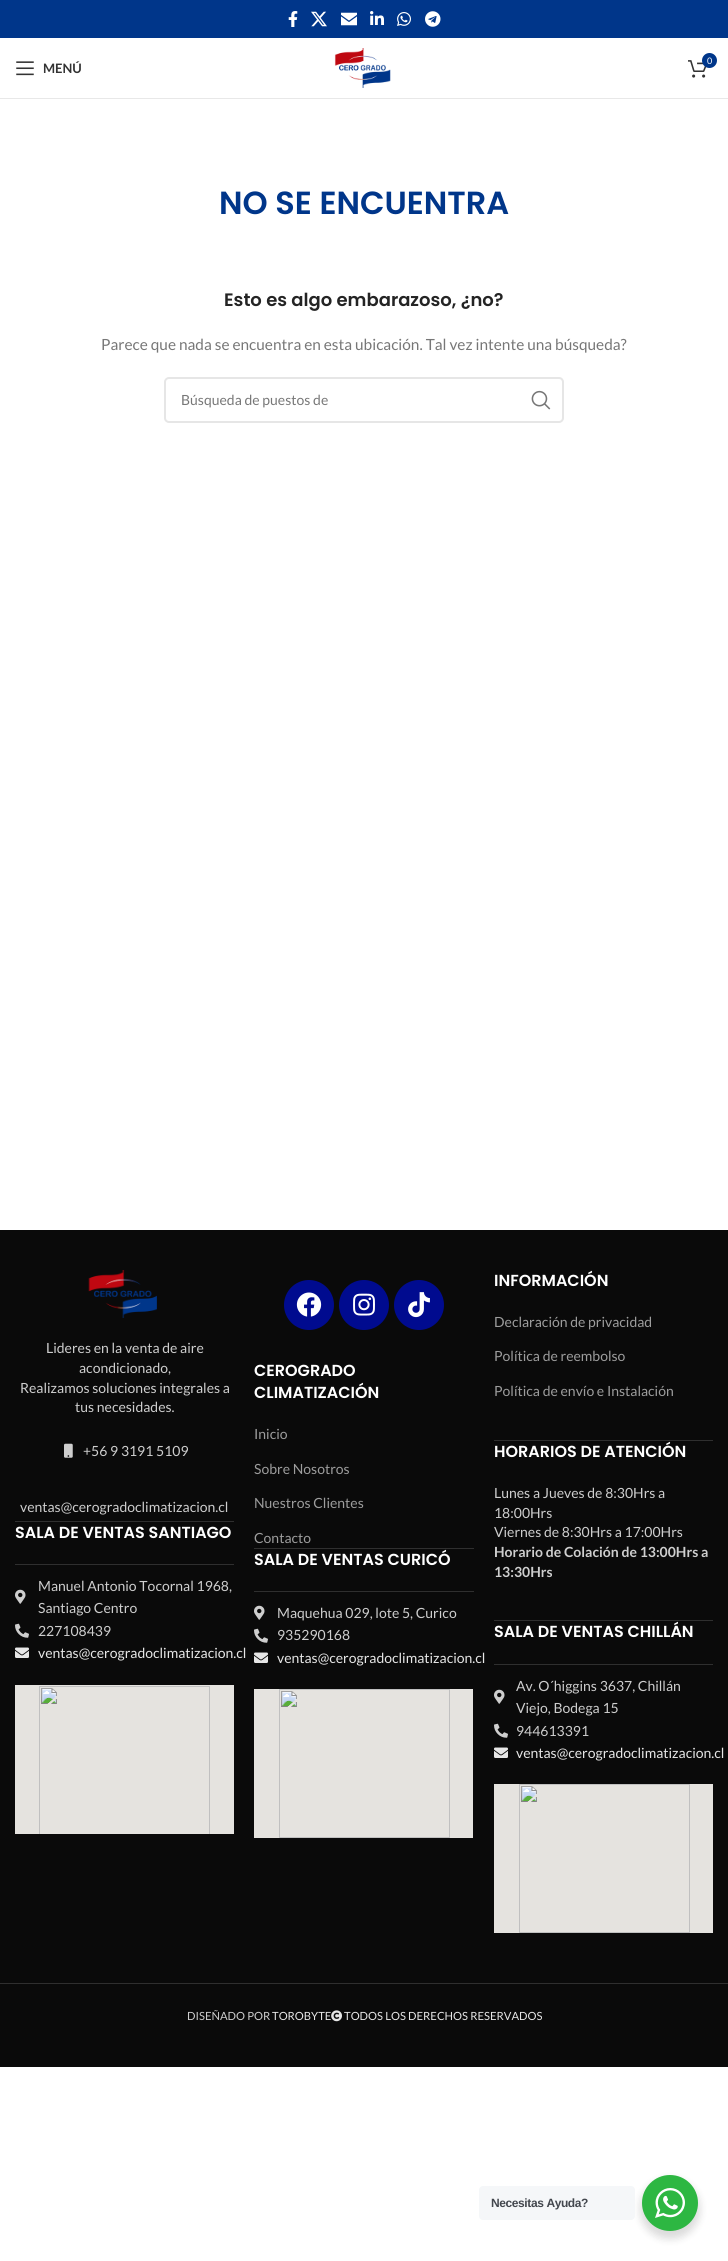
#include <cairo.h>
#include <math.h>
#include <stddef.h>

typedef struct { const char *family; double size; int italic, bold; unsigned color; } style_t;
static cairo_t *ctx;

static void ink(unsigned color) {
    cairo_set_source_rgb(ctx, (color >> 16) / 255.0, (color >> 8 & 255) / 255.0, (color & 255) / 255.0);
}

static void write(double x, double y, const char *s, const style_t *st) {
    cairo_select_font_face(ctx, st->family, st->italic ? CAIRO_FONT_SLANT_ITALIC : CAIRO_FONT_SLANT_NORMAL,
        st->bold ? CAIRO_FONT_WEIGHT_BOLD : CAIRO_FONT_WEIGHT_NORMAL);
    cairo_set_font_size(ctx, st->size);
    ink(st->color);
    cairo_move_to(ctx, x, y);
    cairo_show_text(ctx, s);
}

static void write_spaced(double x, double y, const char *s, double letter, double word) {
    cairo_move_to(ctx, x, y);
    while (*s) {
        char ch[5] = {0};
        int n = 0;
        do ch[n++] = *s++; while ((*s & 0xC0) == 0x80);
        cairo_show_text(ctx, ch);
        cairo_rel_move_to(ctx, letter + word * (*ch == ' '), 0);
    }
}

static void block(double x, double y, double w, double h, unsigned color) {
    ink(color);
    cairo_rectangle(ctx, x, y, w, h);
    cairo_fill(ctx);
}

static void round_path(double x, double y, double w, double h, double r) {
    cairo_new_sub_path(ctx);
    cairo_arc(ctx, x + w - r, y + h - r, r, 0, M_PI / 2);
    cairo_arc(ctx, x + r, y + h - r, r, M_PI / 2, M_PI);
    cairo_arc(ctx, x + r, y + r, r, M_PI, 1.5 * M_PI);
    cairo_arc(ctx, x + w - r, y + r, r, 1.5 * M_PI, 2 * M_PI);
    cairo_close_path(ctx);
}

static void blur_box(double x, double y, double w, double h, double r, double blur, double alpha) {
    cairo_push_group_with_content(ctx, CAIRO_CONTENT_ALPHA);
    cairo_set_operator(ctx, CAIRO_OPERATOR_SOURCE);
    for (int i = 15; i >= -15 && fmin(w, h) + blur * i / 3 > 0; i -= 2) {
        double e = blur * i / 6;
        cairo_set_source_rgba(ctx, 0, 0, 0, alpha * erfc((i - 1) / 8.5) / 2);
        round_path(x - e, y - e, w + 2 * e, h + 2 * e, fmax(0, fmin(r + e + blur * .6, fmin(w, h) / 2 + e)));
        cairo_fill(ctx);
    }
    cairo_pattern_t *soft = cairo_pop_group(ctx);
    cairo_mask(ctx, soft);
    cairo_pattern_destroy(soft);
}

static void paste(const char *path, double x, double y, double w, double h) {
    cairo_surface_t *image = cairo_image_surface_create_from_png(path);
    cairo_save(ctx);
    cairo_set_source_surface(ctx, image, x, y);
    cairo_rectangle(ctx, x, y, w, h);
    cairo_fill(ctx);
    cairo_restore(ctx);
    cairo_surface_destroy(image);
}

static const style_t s1 = {"Lato", 13, 0, 1, 0x333333};
static const style_t s2 = {"Lato", 9, 0, 0, 0xffffff};
static const style_t s3 = {"Poppins SemiBold", 32, 0, 0, 0x00368a};
static const style_t s4 = {"Poppins SemiBold", 18, 0, 0, 0x242424};
static const style_t s5 = {"Lato", 15.4, 0, 0, 0x777777};
static const style_t s6 = {"Lato", 14, 0, 0, 0x777777};
static const style_t s7 = {"Lato", 14, 0, 0, 0xcecece};
static const style_t s8 = {"Poppins SemiBold", 16, 0, 0, 0xffffff};
static const style_t s9 = {"Lato", 14, 0, 0, 0xe7e7e7};
static const style_t s10 = {"Lato", 14, 0, 0, 0x9d9d9d};
static const style_t s11 = {"Lato", 14, 0, 1, 0xcecece};
static const style_t s12 = {"Lato", 11.25, 0, 0, 0xcecece};
static const style_t s13 = {"Lato", 11.25, 0, 0, 0xe7e7e7};

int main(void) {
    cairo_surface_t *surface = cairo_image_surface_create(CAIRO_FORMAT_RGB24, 728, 2261);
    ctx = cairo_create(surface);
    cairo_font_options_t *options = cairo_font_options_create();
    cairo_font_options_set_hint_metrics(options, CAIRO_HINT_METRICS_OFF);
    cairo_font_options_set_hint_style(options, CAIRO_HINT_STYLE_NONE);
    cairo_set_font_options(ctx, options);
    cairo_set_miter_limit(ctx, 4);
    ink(0xffffff);
    cairo_paint(ctx);
    block(0, 0, 728, 38, 0x00368a);
    paste("pic1.png", 288, 11, 10, 16);
    paste("pic2.png", 311, 11, 16, 16);
    paste("pic3.png", 341, 12, 16, 14);
    paste("pic4.png", 370, 11, 14, 14);
    paste("pic5.png", 397, 12, 14, 14);
    paste("pic6.png", 425, 11, 16, 16);
    block(0, 98, 728, 1, 0xe8e8e8);
    paste("pic7.png", 16, 61, 18, 15);
    write(43, 73, "MENÚ", &s1);
    paste("pic8.png", 334, 48, 57, 40);
    paste("pic9.png", 688, 60, 19, 18);
    ink(0x00368a);
    cairo_arc(ctx, 709.5, 60.5, 7.5, 0, 2 * M_PI);
    cairo_fill(ctx);
    write(707, 64, "0", &s2);
    write(219, 214, "NO SE ENCUENTRA", &s3);
    write(224, 306, "Esto es algo embarazoso, ¿no?", &s4);
    write(101, 350, "Parece que nada se encuentra en esta ubicación. Tal vez intente una búsqueda?", &s5);
    round_path(165, 378, 398, 44, 4);
    ink(0xe6e6e6);
    cairo_stroke(ctx);
    write(181, 405, "Búsqueda de puestos de", &s6);
    paste("pic10.png", 531, 390, 20, 20);
    block(0, 1230, 728, 837, 0x0a0a0a);
    block(15, 1521, 219, 1, 0x2f2f2f);
    paste("pic11.png", 88, 1270, 69, 48);
    write(46, 1353, "Lideres en la venta de aire", &s7);
    write(79, 1373, "acondicionado,", &s7);
    write(20, 1393, "Realizamos soluciones integrales a", &s7);
    write(75, 1412, "tus necesidades.", &s7);
    paste("pic12.png", 64, 1443, 9, 15);
    write(83, 1456, "+56 9 3191 5109", &s7);
    write(20, 1512, "ventas@cerogradoclimatizacion.cl", &s7);
    block(15, 1564, 219, 1, 0x2f2f2f);
    write(15, 1538, "SALA DE VENTAS SANTIAGO", &s8);
    paste("pic13.png", 15, 1589, 11, 15);
    write(38, 1591, "Manuel Antonio Tocornal 1968,", &s7);
    write(38, 1613, "Santiago Centro", &s7);
    paste("pic14.png", 15, 1623, 14, 15);
    write(38, 1636, "227108439", &s7);
    paste("pic15.png", 15, 1647, 14, 11);
    write(38, 1658, "ventas@cerogradoclimatizacion.cl", &s9);
    paste("pic16.png", 15, 1685, 219, 149);
    ink(0x000b8f);
    cairo_arc(ctx, 309, 1305, 25, 0, 2 * M_PI);
    cairo_fill(ctx);
    paste("pic17.png", 296, 1292, 26, 25);
    cairo_arc(ctx, 364, 1305, 25, 0, 2 * M_PI);
    cairo_fill(ctx);
    paste("pic18.png", 353, 1293, 22, 23);
    cairo_arc(ctx, 419, 1305, 25, 0, 2 * M_PI);
    cairo_fill(ctx);
    paste("pic19.png", 408, 1292, 22, 26);
    block(254, 1548, 220, 1, 0x2f2f2f);
    write(254, 1376, "CEROGRADO", &s8);
    write(254, 1398, "CLIMATIZACIÓN", &s8);
    write(254, 1439, "Inicio", &s10);
    write(254, 1474, "Sobre Nosotros", &s10);
    write(254, 1508, "Nuestros Clientes", &s10);
    write(254, 1543, "Contacto", &s10);
    block(254, 1591, 220, 1, 0x2f2f2f);
    write(254, 1565, "SALA DE VENTAS CURICÓ", &s8);
    paste("pic13.png", 254, 1605, 11, 15);
    write(277, 1618, "Maquehua 029, lote 5, Curico", &s7);
    paste("pic14.png", 254, 1628, 14, 15);
    write(277, 1640, "935290168", &s7);
    paste("pic15.png", 254, 1652, 14, 11);
    write(277, 1663, "ventas@cerogradoclimatizacion.cl", &s9);
    paste("pic20.png", 254, 1689, 219, 149);
    block(494, 1440, 219, 1, 0x2f2f2f);
    write(494, 1286, "INFORMACIÓN", &s8);
    write(494, 1327, "Declaración de privacidad", &s10);
    write(494, 1361, "Política de reembolso", &s10);
    write(494, 1396, "Política de envío e Instalación", &s10);
    block(494, 1620, 219, 1, 0x2f2f2f);
    write(494, 1457, "HORARIOS DE ATENCIÓN", &s8);
    write(494, 1498, "Lunes a Jueves de 8:30Hrs a", &s7);
    write(494, 1518, "18:00Hrs", &s7);
    write(494, 1537, "Viernes de 8:30Hrs a 17:00Hrs", &s7);
    write(494, 1557, "Horario de Colación de 13:00Hrs a", &s11);
    write(494, 1577, "13:30Hrs", &s11);
    block(494, 1664, 219, 1, 0x2f2f2f);
    write(494, 1637, "SALA DE VENTAS CHILLÁN", &s8);
    paste("pic13.png", 494, 1689, 11, 15);
    write(516, 1691, "Av. O´higgins 3637, Chillán", &s7);
    write(516, 1713, "Viejo, Bodega 15", &s7);
    paste("pic14.png", 494, 1723, 14, 15);
    write(516, 1736, "944613391", &s7);
    paste("pic15.png", 494, 1747, 14, 11);
    write(516, 1758, "ventas@cerogradoclimatizacion.cl", &s9);
    paste("pic20.png", 494, 1784, 219, 149);
    block(0, 1983, 728, 1, 0x2f2f2f);
    write(187, 2020, "DISEÑADO POR", &s12);
    write(272, 2020, "TOROBYTE", &s13);
    paste("pic21.png", 331, 2010, 11, 12);
    write(344, 2020, "TODOS LOS DERECHOS RESERVADOS", &s13);
    ink(0x000000);
    blur_box(640, 2179, 60, 60, 30, 4, 0.14);
    ink(0xf5f7f9);
    round_path(479, 2186, 156, 34, 4);
    cairo_fill(ctx);
    cairo_select_font_face(ctx, "Liberation Sans", CAIRO_FONT_SLANT_NORMAL, CAIRO_FONT_WEIGHT_BOLD);
    cairo_set_font_size(ctx, 12);
    ink(0x43474e);
    write_spaced(491, 2207, "Necesitas Ayuda?", -0.4, 0);
    ink(0x2db742);
    cairo_new_path(ctx);
    cairo_arc(ctx, 670, 2203, 28, 0, 2 * M_PI);
    cairo_fill(ctx);
    paste("pic22.png", 655, 2188, 30, 30);
    cairo_surface_write_to_png(surface, "screenshot.png");
    cairo_font_options_destroy(options);
    cairo_destroy(ctx);
    cairo_surface_destroy(surface);
    return 0;
}
